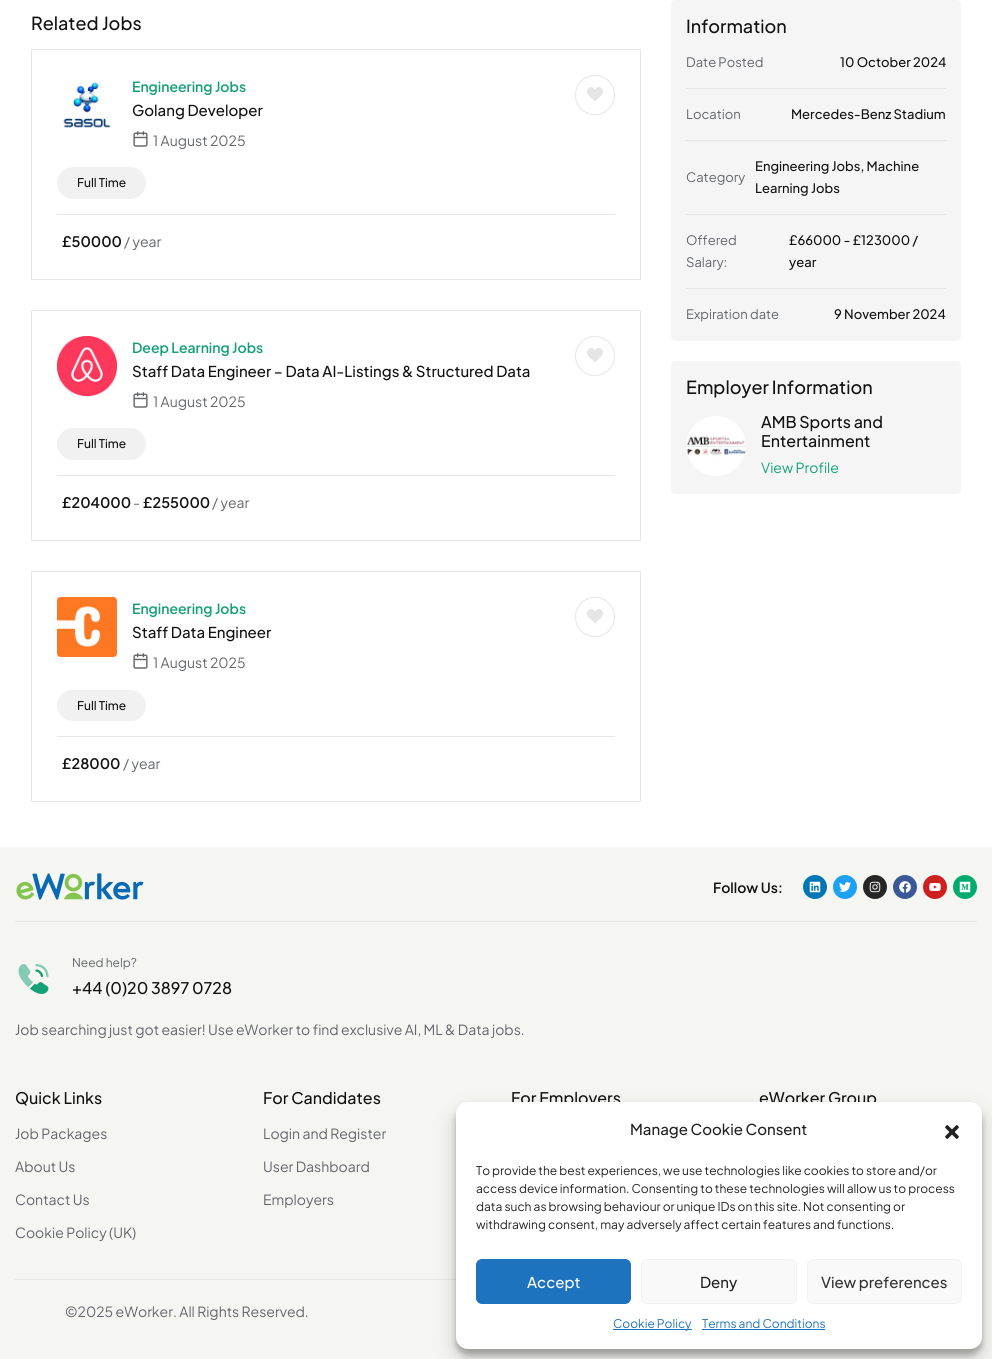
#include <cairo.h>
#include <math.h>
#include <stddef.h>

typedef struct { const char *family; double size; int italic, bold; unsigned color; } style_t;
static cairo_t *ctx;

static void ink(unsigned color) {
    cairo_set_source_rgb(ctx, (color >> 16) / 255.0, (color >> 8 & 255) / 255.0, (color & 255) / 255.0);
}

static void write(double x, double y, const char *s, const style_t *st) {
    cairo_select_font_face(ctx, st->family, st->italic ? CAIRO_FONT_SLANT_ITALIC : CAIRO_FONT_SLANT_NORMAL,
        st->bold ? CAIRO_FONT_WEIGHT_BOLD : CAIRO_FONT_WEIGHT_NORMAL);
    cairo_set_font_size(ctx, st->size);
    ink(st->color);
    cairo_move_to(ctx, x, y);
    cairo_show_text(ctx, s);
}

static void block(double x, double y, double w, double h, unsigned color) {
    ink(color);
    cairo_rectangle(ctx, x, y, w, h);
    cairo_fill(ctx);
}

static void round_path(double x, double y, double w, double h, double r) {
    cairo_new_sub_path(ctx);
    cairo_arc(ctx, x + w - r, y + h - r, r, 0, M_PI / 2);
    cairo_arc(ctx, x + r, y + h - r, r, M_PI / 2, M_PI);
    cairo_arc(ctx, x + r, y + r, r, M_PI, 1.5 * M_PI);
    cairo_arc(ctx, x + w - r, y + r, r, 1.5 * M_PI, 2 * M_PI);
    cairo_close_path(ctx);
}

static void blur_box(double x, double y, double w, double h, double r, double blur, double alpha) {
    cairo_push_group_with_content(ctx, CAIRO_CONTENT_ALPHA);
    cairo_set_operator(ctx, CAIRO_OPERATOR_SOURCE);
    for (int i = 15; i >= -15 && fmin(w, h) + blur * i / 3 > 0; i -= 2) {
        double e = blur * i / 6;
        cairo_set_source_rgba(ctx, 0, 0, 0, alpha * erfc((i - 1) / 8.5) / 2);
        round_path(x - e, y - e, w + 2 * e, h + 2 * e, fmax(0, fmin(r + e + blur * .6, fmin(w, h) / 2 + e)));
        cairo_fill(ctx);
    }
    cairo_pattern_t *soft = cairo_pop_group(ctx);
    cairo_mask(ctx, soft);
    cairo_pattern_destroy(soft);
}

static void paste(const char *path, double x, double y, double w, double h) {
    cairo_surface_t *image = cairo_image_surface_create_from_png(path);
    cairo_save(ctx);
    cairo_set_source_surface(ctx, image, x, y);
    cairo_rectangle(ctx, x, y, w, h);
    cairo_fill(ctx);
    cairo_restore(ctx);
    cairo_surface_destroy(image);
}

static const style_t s1 = {"Plus Jakarta Sans Medium", 18, 0, 0, 0x121212};
static const style_t s2 = {"Plus Jakarta Sans SemiBold", 14, 0, 0, 0x14a077};
static const style_t s3 = {"Plus Jakarta Sans Medium", 15, 0, 0, 0x121212};
static const style_t s4 = {"Plus Jakarta Sans", 14, 0, 0, 0x64666c};
static const style_t s5 = {"Plus Jakarta Sans Medium", 12, 0, 0, 0x121212};
static const style_t s6 = {"Plus Jakarta Sans SemiBold", 14.5, 0, 0, 0x121212};
static const style_t s7 = {"Plus Jakarta Sans", 13, 0, 0, 0x64666c};
static const style_t s8 = {"Plus Jakarta Sans Medium", 13, 0, 0, 0x121212};
static const style_t s9 = {"Plus Jakarta Sans Medium", 16, 0, 0, 0x121212};
static const style_t s10 = {"Plus Jakarta Sans", 14, 0, 0, 0x14a077};
static const style_t s11 = {"Plus Jakarta Sans SemiBold", 14, 0, 0, 0x121212};
static const style_t s12 = {"Plus Jakarta Sans", 12, 0, 0, 0x64666c};
static const style_t s13 = {"Plus Jakarta Sans Medium", 15, 0, 0, 0x222222};
static const style_t s14 = {"Plus Jakarta Sans", 12, 0, 0, 0x222222};
static const style_t s15 = {"Plus Jakarta Sans Medium", 15, 0, 0, 0xffffff};
static const style_t s16 = {"Plus Jakarta Sans Medium", 15, 0, 0, 0x333333};
static const style_t s17 = {"Plus Jakarta Sans", 12, 0, 0, 0x1e73be};

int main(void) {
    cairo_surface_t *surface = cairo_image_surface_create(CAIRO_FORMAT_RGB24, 992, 1359);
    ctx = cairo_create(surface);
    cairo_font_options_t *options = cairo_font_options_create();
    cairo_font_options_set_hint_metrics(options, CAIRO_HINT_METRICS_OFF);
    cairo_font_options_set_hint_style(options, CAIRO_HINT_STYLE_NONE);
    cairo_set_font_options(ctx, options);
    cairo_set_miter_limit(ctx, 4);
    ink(0xffffff);
    cairo_paint(ctx);
    write(31, 30, "Related Jobs", &s1);
    cairo_rectangle(ctx, 31.5, 49.5, 609, 230);
    ink(0xe5e5e5);
    cairo_set_line_width(ctx, 1);
    cairo_stroke(ctx);
    paste("pic1.png", 57, 81, 54, 47);
    write(132, 92, "Engineering Jobs", &s2);
    write(132, 116, "Golang Developer", &s3);
    cairo_new_path(ctx);
    cairo_arc(ctx, 595, 95, 19.5, 0, 2 * M_PI);
    ink(0xe5e5e5);
    cairo_stroke(ctx);
    paste("pic2.png", 587, 87, 16, 15);
    paste("pic3.png", 133, 131, 15, 16);
    write(153, 146, "1 August 2025", &s4);
    ink(0xf1f1f1);
    round_path(57, 167, 89, 32, 16);
    cairo_fill(ctx);
    write(77, 187, "Full Time", &s5);
    block(57, 214, 558, 1, 0xe5e5e5);
    write(62, 247, "£50000", &s6);
    write(124, 247, "/ year", &s4);
    cairo_rectangle(ctx, 31.5, 310.5, 609, 230);
    ink(0xe5e5e5);
    cairo_stroke(ctx);
    paste("pic4.png", 57, 336, 60, 60);
    write(132, 353, "Deep Learning Jobs", &s2);
    write(132, 377, "Staff Data Engineer – Data AI-Listings & Structured Data", &s3);
    cairo_new_path(ctx);
    cairo_arc(ctx, 595, 356, 19.5, 0, 2 * M_PI);
    ink(0xe5e5e5);
    cairo_stroke(ctx);
    paste("pic2.png", 587, 348, 16, 15);
    paste("pic3.png", 133, 392, 15, 16);
    write(153, 407, "1 August 2025", &s4);
    ink(0xf1f1f1);
    round_path(57, 428, 89, 32, 16);
    cairo_fill(ctx);
    write(77, 448, "Full Time", &s5);
    block(57, 475, 558, 1, 0xe5e5e5);
    write(62, 508, "£204000", &s6);
    write(133, 508, "-", &s4);
    write(143, 508, "£255000", &s6);
    write(212, 508, "/ year", &s4);
    cairo_rectangle(ctx, 31.5, 571.5, 609, 230);
    ink(0xe5e5e5);
    cairo_stroke(ctx);
    paste("pic5.png", 57, 597, 60, 60);
    write(132, 614, "Engineering Jobs", &s2);
    write(132, 638, "Staff Data Engineer", &s3);
    cairo_new_path(ctx);
    cairo_arc(ctx, 595, 617, 19.5, 0, 2 * M_PI);
    ink(0xe5e5e5);
    cairo_stroke(ctx);
    paste("pic2.png", 587, 609, 16, 15);
    paste("pic3.png", 133, 653, 15, 16);
    write(153, 668, "1 August 2025", &s4);
    ink(0xf1f1f1);
    round_path(57, 690, 89, 31, 15.5);
    cairo_fill(ctx);
    write(77, 710, "Full Time", &s5);
    block(57, 736, 558, 1, 0xe5e5e5);
    write(62, 769, "£28000", &s6);
    write(123, 769, "/ year", &s4);
    ink(0xf5f5f5);
    round_path(671, 0, 290, 341, 4);
    cairo_fill(ctx);
    write(686, 33, "Information", &s1);
    block(686, 88, 260, 1, 0xe5e5e5);
    write(686, 67, "Date Posted", &s7);
    write(840, 67, "10 October 2024", &s8);
    block(686, 140, 260, 1, 0xe5e5e5);
    write(686, 119, "Location", &s7);
    write(791, 119, "Mercedes-Benz Stadium", &s8);
    block(686, 214, 260, 1, 0xe5e5e5);
    write(686, 182, "Category", &s7);
    write(755, 171, "Engineering Jobs, Machine", &s8);
    write(755, 193, "Learning Jobs", &s8);
    block(686, 288, 260, 1, 0xe5e5e5);
    write(686, 245, "Offered", &s7);
    write(686, 267, "Salary:", &s7);
    write(789, 245, "£66000 - £123000 /", &s8);
    write(789, 267, "year", &s8);
    write(686, 319, "Expiration date", &s7);
    write(834, 319, "9 November 2024", &s8);
    ink(0xf5f5f5);
    round_path(671, 361, 290, 133, 4);
    cairo_fill(ctx);
    write(686, 394, "Employer Information", &s1);
    paste("pic6.png", 686, 416, 60, 60);
    write(761, 428, "AMB Sports and", &s9);
    write(761, 447, "Entertainment", &s9);
    write(761, 473, "View Profile", &s10);
    block(0, 847, 992, 512, 0xf5f5f2);
    paste("pic7.png", 16, 873, 128, 27);
    write(713, 893, "Follow Us:", &s11);
    ink(0x0077b5);
    cairo_new_path(ctx);
    cairo_arc(ctx, 815, 887, 12, 0, 2 * M_PI);
    cairo_fill(ctx);
    paste("pic8.png", 809, 881, 12, 12);
    ink(0x1da1f2);
    cairo_arc(ctx, 845, 887, 12, 0, 2 * M_PI);
    cairo_fill(ctx);
    paste("pic9.png", 839, 882, 12, 10);
    ink(0x262626);
    cairo_arc(ctx, 875, 887, 12, 0, 2 * M_PI);
    cairo_fill(ctx);
    paste("pic10.png", 869, 881, 12, 12);
    ink(0x3b5998);
    cairo_arc(ctx, 905, 887, 12, 0, 2 * M_PI);
    cairo_fill(ctx);
    paste("pic11.png", 899, 881, 12, 12);
    ink(0xcd201f);
    cairo_arc(ctx, 935, 887, 12, 0, 2 * M_PI);
    cairo_fill(ctx);
    paste("pic12.png", 929, 883, 12, 8);
    ink(0x00ab6b);
    cairo_arc(ctx, 965, 887, 12, 0, 2 * M_PI);
    cairo_fill(ctx);
    paste("pic13.png", 959, 881, 12, 12);
    block(15, 921, 962, 1, 0xe5e5e5);
    paste("pic14.png", 18, 964, 31, 30);
    write(72, 967, "Need help?", &s12);
    write(72, 994, "+44 (0)20 3897 0728", &s9);
    write(15, 1035, "Job searching just got easier! Use eWorker to find exclusive AI, ML & Data jobs.", &s4);
    write(15, 1104, "Quick Links", &s9);
    write(15, 1139, "Job Packages", &s4);
    write(15, 1172, "About Us", &s4);
    write(15, 1205, "Contact Us", &s4);
    write(15, 1238, "Cookie Policy (UK)", &s4);
    write(263, 1104, "For Candidates", &s9);
    write(263, 1139, "Login and Register", &s4);
    write(263, 1172, "User Dashboard", &s4);
    write(263, 1205, "Employers", &s4);
    write(511, 1104, "For Employers", &s9);
    write(759, 1104, "eWorker Group", &s9);
    block(15, 1279, 441, 1, 0xe5e5e5);
    write(65, 1317, "©2025 eWorker. All Rights Reserved.", &s4);
    ink(0x000000);
    blur_box(456, 1108, 526, 247, 12, 3, 0.23);
    blur_box(456, 1112, 526, 247, 12, 10, 0.19);
    ink(0xffffff);
    round_path(456, 1102, 526, 247, 12);
    cairo_fill(ctx);
    write(630, 1135, "Manage Cookie Consent", &s13);
    paste("pic15.png", 945, 1125, 14, 14);
    write(476, 1175, "To provide the best experiences, we use technologies like cookies to store and/or", &s14);
    write(476, 1193, "access device information. Consenting to these technologies will allow us to process", &s14);
    write(476, 1211, "data such as browsing behaviour or unique IDs on this site. Not consenting or", &s14);
    write(476, 1229, "withdrawing consent, may adversely affect certain features and functions.", &s14);
    ink(0x1e73be);
    round_path(476.5, 1259.5, 154, 44, 5.5);
    cairo_fill_preserve(ctx);
    cairo_stroke(ctx);
    write(527, 1288, "Accept", &s15);
    ink(0xf9f9f9);
    round_path(641.5, 1259.5, 155, 44, 5.5);
    cairo_fill_preserve(ctx);
    ink(0xf2f2f2);
    cairo_stroke(ctx);
    write(700, 1288, "Deny", &s13);
    ink(0xf9f9f9);
    round_path(807.5, 1259.5, 154, 44, 5.5);
    cairo_fill_preserve(ctx);
    ink(0xf2f2f2);
    cairo_stroke(ctx);
    write(821, 1288, "View preferences", &s16);
    block(613, 1329, 79, 1, 0x1e73be);
    write(613, 1328, "Cookie Policy", &s17);
    write(702, 1328, "Terms and Conditions", &s17);
    block(702, 1329, 123, 1, 0x1e73be);
    cairo_surface_write_to_png(surface, "screenshot.png");
    cairo_font_options_destroy(options);
    cairo_destroy(ctx);
    cairo_surface_destroy(surface);
    return 0;
}
